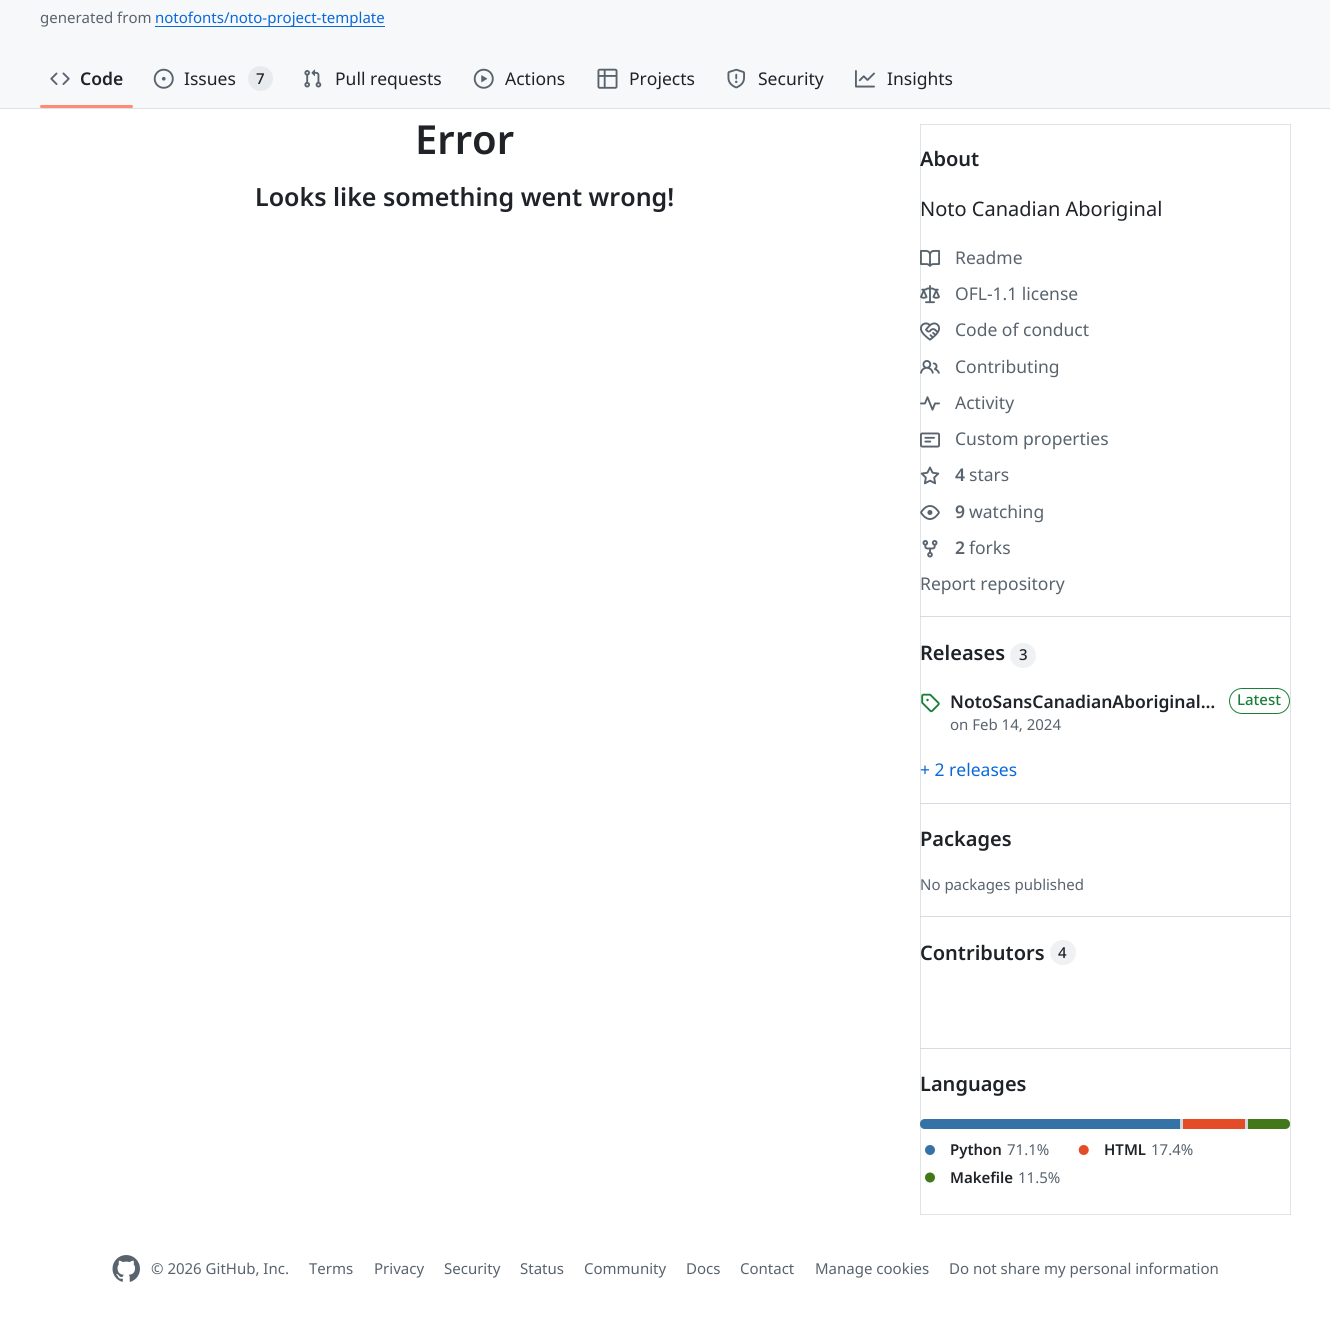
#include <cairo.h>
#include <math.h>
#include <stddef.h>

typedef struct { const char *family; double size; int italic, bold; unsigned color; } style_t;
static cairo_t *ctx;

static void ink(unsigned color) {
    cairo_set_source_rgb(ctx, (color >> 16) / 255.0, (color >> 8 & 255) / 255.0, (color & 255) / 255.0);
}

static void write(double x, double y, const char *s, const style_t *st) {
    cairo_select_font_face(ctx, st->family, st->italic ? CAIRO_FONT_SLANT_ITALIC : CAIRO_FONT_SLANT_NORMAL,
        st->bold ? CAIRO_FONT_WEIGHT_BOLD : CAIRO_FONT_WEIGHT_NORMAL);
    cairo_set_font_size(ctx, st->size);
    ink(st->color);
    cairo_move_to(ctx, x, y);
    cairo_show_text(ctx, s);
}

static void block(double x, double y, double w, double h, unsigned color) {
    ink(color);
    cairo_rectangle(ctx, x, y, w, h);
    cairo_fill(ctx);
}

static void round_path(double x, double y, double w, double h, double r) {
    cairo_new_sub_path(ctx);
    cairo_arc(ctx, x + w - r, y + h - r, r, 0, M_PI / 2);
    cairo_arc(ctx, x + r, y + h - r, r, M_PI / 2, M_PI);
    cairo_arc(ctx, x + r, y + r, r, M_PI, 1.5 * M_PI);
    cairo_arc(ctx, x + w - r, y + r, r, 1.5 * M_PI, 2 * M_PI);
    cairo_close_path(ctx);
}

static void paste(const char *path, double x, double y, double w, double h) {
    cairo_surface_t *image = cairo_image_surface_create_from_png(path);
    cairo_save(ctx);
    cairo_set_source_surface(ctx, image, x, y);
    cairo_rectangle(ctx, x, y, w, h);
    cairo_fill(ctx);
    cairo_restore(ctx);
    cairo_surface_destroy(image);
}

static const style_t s1 = {"Noto Sans", 15, 0, 0, 0x59636e};
static const style_t s2 = {"Noto Sans", 15, 0, 0, 0x0969da};
static const style_t s3 = {"Noto Sans SemiBold", 17.5, 0, 0, 0x1f2328};
static const style_t s4 = {"Noto Sans", 17.5, 0, 0, 0x1f2328};
static const style_t s5 = {"Noto Sans Medium", 15, 0, 0, 0x1f2328};
static const style_t s6 = {"Noto Sans SemiBold", 40, 0, 0, 0x1f2328};
static const style_t s7 = {"Noto Sans SemiBold", 25, 0, 0, 0x1f2328};
static const style_t s8 = {"Noto Sans SemiBold", 20, 0, 0, 0x1f2328};
static const style_t s9 = {"Noto Sans", 20, 0, 0, 0x1f2328};
static const style_t s10 = {"Noto Sans", 17.5, 0, 0, 0x59636e};
static const style_t s11 = {"Noto Sans SemiBold", 17.5, 0, 0, 0x59636e};
static const style_t s12 = {"Noto Sans Medium", 15, 0, 0, 0x1a7f37};
static const style_t s13 = {"Noto Sans", 17.5, 0, 0, 0x0969da};
static const style_t s14 = {"Noto Sans SemiBold", 15, 0, 0, 0x1f2328};

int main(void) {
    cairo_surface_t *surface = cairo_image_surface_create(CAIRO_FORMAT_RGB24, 1330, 1320);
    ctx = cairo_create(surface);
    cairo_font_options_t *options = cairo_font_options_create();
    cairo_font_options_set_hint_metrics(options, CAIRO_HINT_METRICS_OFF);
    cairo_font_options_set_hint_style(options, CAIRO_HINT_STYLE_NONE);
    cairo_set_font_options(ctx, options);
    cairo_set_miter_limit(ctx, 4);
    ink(0xffffff);
    cairo_paint(ctx);
    block(920, 124, 1, 1091, 0xdfe4e9);
    block(1290, 124, 1, 925, 0xdfe4e9);
    block(920, 616, 1, 2, 0xd5dce3);
    block(1290, 616, 1, 2, 0xd5dce3);
    block(920, 916, 1, 2, 0xd5dce3);
    block(1290, 916, 1, 2, 0xd5dce3);
    block(920, 1214, 371, 1, 0xdfe4e9);
    block(920, 1214, 1, 1, 0xd5dce3);
    block(1290, 1048, 1, 167, 0xdfe4e9);
    block(1290, 1214, 1, 1, 0xd5dce3);
    block(0, 0, 1330, 108, 0xf6f8fa);
    write(40, 23, "generated from", &s1);
    block(155, 26, 230, 1, 0x0969da);
    write(155, 23, "notofonts/noto-project-template", &s2);
    block(0, 108, 1330, 1, 0xdce2e8);
    paste("pic1.png", 50, 72, 20, 13);
    write(80, 85, "Code", &s3);
    ink(0xfd8c73);
    round_path(40, 105, 93, 3, 1.5);
    cairo_fill(ctx);
    paste("pic2.png", 153, 68, 21, 21);
    write(184, 85, "Issues", &s4);
    ink(0xe8ebee);
    cairo_new_path(ctx);
    cairo_arc(ctx, 260.5, 78.5, 12.5, 0, 2 * M_PI);
    cairo_fill(ctx);
    write(256, 84, "7", &s5);
    paste("pic3.png", 304, 69, 18, 19);
    write(335, 85, "Pull requests", &s4);
    paste("pic4.png", 473, 68, 21, 21);
    write(505, 85, "Actions", &s4);
    paste("pic5.png", 597, 68, 21, 21);
    write(629, 85, "Projects", &s4);
    paste("pic6.png", 727, 68, 18, 21);
    write(758, 85, "Security", &s4);
    paste("pic7.png", 855, 70, 20, 18);
    write(887, 85, "Insights", &s4);
    write(415, 154, "Error", &s6);
    write(255, 206, "Looks like something went wrong!", &s7);
    block(920, 124, 371, 1, 0xdfe4e9);
    block(920, 124, 1, 1, 0xd5dce3);
    block(1290, 124, 1, 1, 0xd5dce3);
    write(920, 166, "About", &s8);
    write(920, 216, "Noto Canadian Aboriginal", &s9);
    paste("pic8.png", 920, 250, 20, 17);
    write(955, 264, "Readme", &s10);
    paste("pic9.png", 920, 285, 20, 19);
    write(955, 300, "OFL-1.1 license", &s10);
    paste("pic10.png", 920, 322, 20, 19);
    write(955, 336, "Code of conduct", &s10);
    paste("pic11.png", 920, 360, 20, 14);
    write(955, 373, "Contributing", &s10);
    paste("pic12.png", 920, 396, 20, 15);
    write(955, 409, "Activity", &s10);
    paste("pic13.png", 920, 432, 20, 16);
    write(955, 445, "Custom properties", &s10);
    paste("pic14.png", 920, 466, 20, 19);
    write(955, 481, "4", &s11);
    write(969, 481, "stars", &s10);
    paste("pic15.png", 920, 505, 20, 15);
    write(955, 518, "9", &s11);
    write(969, 518, "watching", &s10);
    paste("pic16.png", 922, 540, 16, 18);
    write(955, 554, "2", &s11);
    write(969, 554, "forks", &s10);
    write(920, 590, "Report repository", &s10);
    block(920, 616, 371, 1, 0xd5dce3);
    block(920, 616, 1, 1, 0xd1d9e0);
    block(1290, 616, 1, 1, 0xd1d9e0);
    write(920, 660, "Releases", &s8);
    ink(0xf0f1f3);
    round_path(1010, 643, 26, 25, 12.5);
    cairo_fill(ctx);
    write(1019, 660, "3", &s5);
    paste("pic17.png", 921, 693, 19, 20);
    write(950, 708, "NotoSansCanadianAboriginal…", &s3);
    round_path(1229.5, 688.5, 60, 25, 12.5);
    ink(0x1a7f37);
    cairo_set_line_width(ctx, 1);
    cairo_stroke(ctx);
    write(1237, 705, "Latest", &s12);
    write(950, 730, "on Feb 14, 2024", &s1);
    write(920, 776, "+ 2 releases", &s13);
    block(920, 803, 371, 1, 0xd5dce3);
    block(920, 803, 1, 1, 0xd1d9e0);
    block(1290, 803, 1, 1, 0xd1d9e0);
    write(920, 846, "Packages", &s8);
    write(920, 890, "No packages published", &s1);
    block(920, 916, 371, 1, 0xd5dce3);
    block(920, 916, 1, 1, 0xd1d9e0);
    block(1290, 916, 1, 1, 0xd1d9e0);
    write(920, 960, "Contributors", &s8);
    ink(0xf0f1f3);
    round_path(1050, 940, 26, 25, 12.5);
    cairo_fill(ctx);
    write(1058, 958, "4", &s5);
    block(920, 1048, 371, 1, 0xd5dce3);
    block(920, 1048, 1, 1, 0xd1d9e0);
    block(1290, 1048, 1, 1, 0xd1d9e0);
    write(920, 1091, "Languages", &s8);
    ink(0xd1d9e0);
    round_path(920, 1119, 370, 10, 5);
    cairo_fill(ctx);
    ink(0x3572a5);
    cairo_new_path(ctx);
    cairo_move_to(ctx, 925, 1119);
    cairo_line_to(ctx, 1180, 1119);
    cairo_line_to(ctx, 1180, 1129);
    cairo_line_to(ctx, 925, 1129);
    cairo_curve_to(ctx, 922, 1129, 920, 1127, 920, 1124);
    cairo_curve_to(ctx, 920, 1121, 922, 1119, 925, 1119);
    cairo_close_path(ctx);
    cairo_fill(ctx);
    block(1183, 1119, 62, 10, 0xe34c26);
    ink(0x427819);
    cairo_new_path(ctx);
    cairo_move_to(ctx, 1248, 1119);
    cairo_line_to(ctx, 1285, 1119);
    cairo_curve_to(ctx, 1288, 1119, 1290, 1121, 1290, 1124);
    cairo_curve_to(ctx, 1290, 1127, 1288, 1129, 1285, 1129);
    cairo_line_to(ctx, 1248, 1129);
    cairo_close_path(ctx);
    cairo_fill(ctx);
    paste("pic18.png", 925, 1145, 10, 10);
    write(950, 1155, "Python", &s14);
    write(1007, 1155, "71.1%", &s1);
    paste("pic19.png", 1078, 1145, 11, 10);
    write(1104, 1155, "HTML", &s14);
    write(1151, 1155, "17.4%", &s1);
    paste("pic20.png", 925, 1172, 10, 11);
    write(950, 1183, "Makefile", &s14);
    write(1018, 1183, "11.5%", &s1);
    paste("pic21.png", 112, 1255, 28, 27);
    write(151, 1274, "© 2026 GitHub, Inc.", &s1);
    write(309, 1274, "Terms", &s1);
    write(374, 1274, "Privacy", &s1);
    write(444, 1274, "Security", &s1);
    write(520, 1274, "Status", &s1);
    write(584, 1274, "Community", &s1);
    write(686, 1274, "Docs", &s1);
    write(740, 1274, "Contact", &s1);
    write(815, 1274, "Manage cookies", &s1);
    write(949, 1274, "Do not share my personal information", &s1);
    cairo_surface_write_to_png(surface, "screenshot.png");
    cairo_font_options_destroy(options);
    cairo_destroy(ctx);
    cairo_surface_destroy(surface);
    return 0;
}
